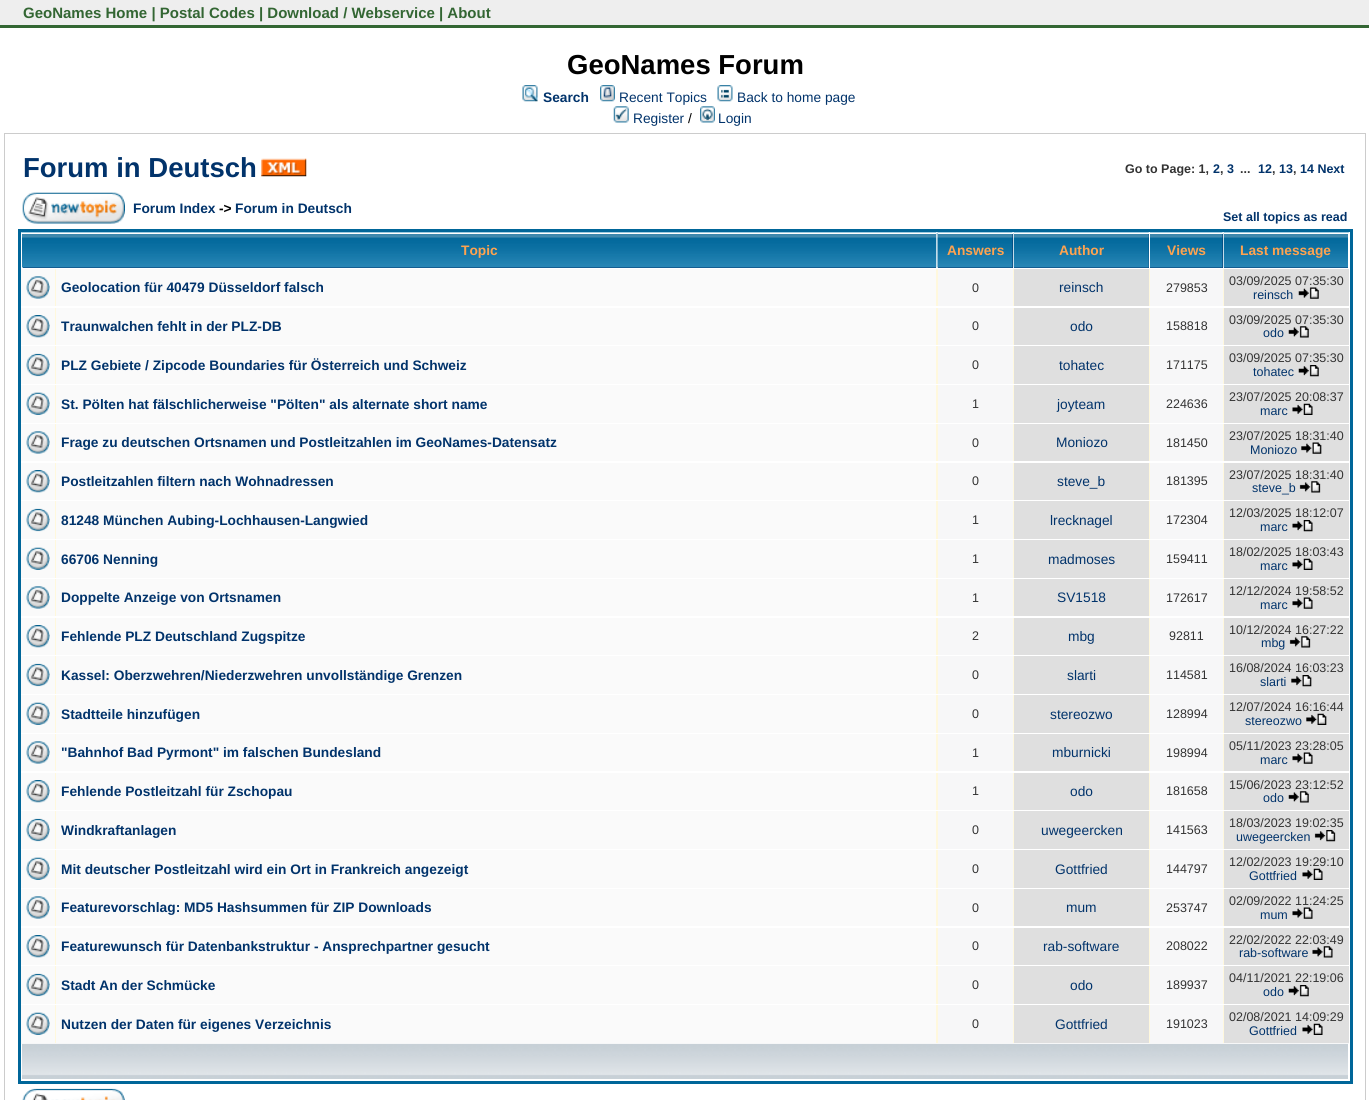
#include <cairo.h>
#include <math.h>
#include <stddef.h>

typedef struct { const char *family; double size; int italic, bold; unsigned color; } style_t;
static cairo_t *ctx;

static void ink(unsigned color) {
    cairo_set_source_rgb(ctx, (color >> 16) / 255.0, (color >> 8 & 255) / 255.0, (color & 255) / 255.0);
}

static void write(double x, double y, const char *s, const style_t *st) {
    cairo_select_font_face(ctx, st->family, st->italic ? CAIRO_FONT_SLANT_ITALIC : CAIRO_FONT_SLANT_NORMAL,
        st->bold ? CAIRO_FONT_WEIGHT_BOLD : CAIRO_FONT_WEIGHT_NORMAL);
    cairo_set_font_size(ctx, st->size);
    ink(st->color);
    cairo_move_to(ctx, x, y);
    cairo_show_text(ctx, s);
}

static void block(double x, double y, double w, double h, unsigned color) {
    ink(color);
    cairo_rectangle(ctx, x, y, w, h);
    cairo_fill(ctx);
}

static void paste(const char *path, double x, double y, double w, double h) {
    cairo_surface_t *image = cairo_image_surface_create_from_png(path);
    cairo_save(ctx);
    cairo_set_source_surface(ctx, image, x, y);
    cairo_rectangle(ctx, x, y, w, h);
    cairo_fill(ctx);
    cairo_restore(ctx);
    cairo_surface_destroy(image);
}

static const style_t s1 = {"Liberation Sans", 15, 0, 1, 0x336633};
static const style_t s2 = {"Liberation Sans", 27.5, 0, 1, 0x000000};
static const style_t s3 = {"Liberation Sans", 13.75, 0, 1, 0x01336b};
static const style_t s4 = {"Liberation Sans", 13.75, 0, 0, 0x01336b};
static const style_t s5 = {"Liberation Sans", 13.75, 0, 0, 0x000000};
static const style_t s6 = {"Liberation Sans", 27.5, 0, 1, 0x01336b};
static const style_t s7 = {"Liberation Sans", 12.5, 0, 1, 0x333333};
static const style_t s8 = {"Liberation Sans", 12.5, 0, 1, 0x01336b};
static const style_t s9 = {"Liberation Sans", 13.75, 0, 1, 0x000000};
static const style_t s10 = {"Liberation Sans", 13.75, 0, 1, 0xffa34f};
static const style_t s11 = {"Liberation Sans", 12.5, 0, 0, 0x333333};
static const style_t s12 = {"Liberation Sans", 12.5, 0, 0, 0x01336b};

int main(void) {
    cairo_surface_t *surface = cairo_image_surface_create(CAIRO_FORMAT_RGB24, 1369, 1100);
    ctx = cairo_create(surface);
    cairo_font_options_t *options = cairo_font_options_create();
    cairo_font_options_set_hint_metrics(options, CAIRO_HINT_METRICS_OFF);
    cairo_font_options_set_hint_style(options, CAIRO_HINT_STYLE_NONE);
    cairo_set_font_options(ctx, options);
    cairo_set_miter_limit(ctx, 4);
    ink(0xffffff);
    cairo_paint(ctx);
    block(0, 0, 1369, 25, 0xeeeeee);
    block(0, 25, 1369, 3, 0x336633);
    write(23, 18, "GeoNames Home | Postal Codes | Download / Webservice | About", &s1);
    write(567, 74, "GeoNames Forum", &s2);
    paste("pic1.png", 522, 85, 16, 17);
    write(543, 102, "Search", &s3);
    paste("pic2.png", 600, 85, 15, 17);
    write(619, 102, "Recent Topics", &s4);
    paste("pic3.png", 717, 85, 16, 17);
    write(737, 102, "Back to home page", &s4);
    paste("pic4.png", 613, 106, 16, 17);
    write(633, 123, "Register", &s4);
    write(688, 123, "/", &s5);
    paste("pic5.png", 700, 106, 15, 17);
    write(718, 123, "Login", &s4);
    cairo_rectangle(ctx, 4.5, 133.5, 1361, 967);
    ink(0xcccccc);
    cairo_set_line_width(ctx, 1);
    cairo_stroke(ctx);
    write(23, 177, "Forum in Deutsch", &s6);
    paste("pic6.png", 261, 158, 46, 19);
    write(1125, 173, "Go to Page: 1,", &s7);
    write(1213, 173, "2", &s8);
    write(1220, 173, ",", &s7);
    write(1227, 173, "3", &s8);
    write(1240, 173, "...", &s7);
    write(1258, 173, "12", &s8);
    write(1272, 173, ",", &s7);
    write(1279, 173, "13", &s8);
    write(1293, 173, ",", &s7);
    write(1300, 173, "14 Next", &s8);
    paste("pic7.png", 22, 192, 103, 32);
    write(133, 213, "Forum Index", &s3);
    write(219, 213, "->", &s9);
    write(235, 213, "Forum in Deutsch", &s3);
    write(1223, 221, "Set all topics as read", &s8);
    cairo_rectangle(ctx, 19.5, 230.5, 1332, 852);
    ink(0x006699);
    cairo_set_line_width(ctx, 3);
    cairo_stroke(ctx);
    block(23, 267, 913, 1, 0x01336b);
    paste("pic8.png", 21, 232, 916, 36);
    block(21, 233, 915, 1, 0xffffff);
    block(21, 233, 1, 35, 0xffffff);
    write(461, 255, "Topic", &s10);
    block(938, 234, 75, 34, 0x01336b);
    paste("pic9.png", 937, 232, 76, 36);
    block(938, 233, 75, 1, 0xffffff);
    write(947, 255, "Answers", &s10);
    block(1014, 234, 135, 34, 0x01336b);
    paste("pic10.png", 1013, 232, 136, 36);
    block(1014, 233, 135, 1, 0xffffff);
    write(1059, 255, "Author", &s10);
    block(1150, 234, 73, 34, 0x01336b);
    paste("pic11.png", 1150, 232, 73, 36);
    block(1150, 233, 73, 1, 0xffffff);
    write(1167, 255, "Views", &s10);
    block(1224, 267, 124, 1, 0x01336b);
    paste("pic12.png", 1223, 232, 126, 36);
    block(1224, 233, 125, 1, 0xffffff);
    block(1348, 233, 1, 35, 0xffffff);
    write(1240, 255, "Last message", &s10);
    block(55, 269, 1169, 37, 0xfff8dd);
    block(21, 269, 34, 37, 0xfafafa);
    paste("pic13.png", 26, 276, 24, 23);
    block(56, 269, 880, 37, 0xfafafa);
    write(61, 292, "Geolocation für 40479 Düsseldorf falsch", &s3);
    block(938, 269, 75, 37, 0xf7f7f8);
    write(972, 292, "0", &s11);
    block(1014, 269, 135, 37, 0xdfdfdf);
    write(1059, 292, "reinsch", &s4);
    block(1150, 269, 73, 37, 0xf7f7f8);
    write(1166, 292, "279853", &s11);
    block(1224, 269, 125, 37, 0xdfdfdf);
    write(1229, 285, "03/09/2025 07:35:30", &s11);
    write(1253, 299, "reinsch", &s12);
    paste("pic14.png", 1298, 287, 21, 12);
    block(55, 308, 1169, 37, 0xfff8dd);
    block(21, 308, 34, 37, 0xfafafa);
    paste("pic15.png", 26, 315, 24, 23);
    block(56, 308, 880, 37, 0xfafafa);
    write(61, 331, "Traunwalchen fehlt in der PLZ-DB", &s3);
    block(938, 308, 75, 37, 0xf7f7f8);
    write(972, 330, "0", &s11);
    block(1014, 308, 135, 37, 0xdfdfdf);
    write(1070, 331, "odo", &s4);
    block(1150, 308, 73, 37, 0xf7f7f8);
    write(1166, 330, "158818", &s11);
    block(1224, 308, 125, 37, 0xdfdfdf);
    write(1229, 324, "03/09/2025 07:35:30", &s11);
    write(1263, 337, "odo", &s12);
    paste("pic16.png", 1288, 326, 21, 12);
    block(55, 346, 1169, 38, 0xfff8dd);
    block(21, 346, 34, 38, 0xfafafa);
    paste("pic17.png", 26, 353, 24, 24);
    block(56, 346, 880, 38, 0xfafafa);
    write(61, 370, "PLZ Gebiete / Zipcode Boundaries für Österreich und Schweiz", &s3);
    block(938, 346, 75, 38, 0xf7f7f8);
    write(972, 369, "0", &s11);
    block(1014, 346, 135, 38, 0xdfdfdf);
    write(1059, 370, "tohatec", &s4);
    block(1150, 346, 73, 38, 0xf7f7f8);
    write(1166, 369, "171175", &s11);
    block(1224, 346, 125, 38, 0xdfdfdf);
    write(1229, 362, "03/09/2025 07:35:30", &s11);
    write(1253, 376, "tohatec", &s12);
    paste("pic18.png", 1298, 365, 21, 12);
    block(55, 385, 1169, 38, 0xfff8dd);
    block(21, 385, 34, 38, 0xfafafa);
    paste("pic19.png", 26, 392, 24, 23);
    block(56, 385, 880, 38, 0xfafafa);
    write(61, 409, "St. Pölten hat fälschlicherweise \"Pölten\" als alternate short name", &s3);
    block(938, 385, 75, 38, 0xf7f7f8);
    write(972, 408, "1", &s11);
    block(1014, 385, 135, 38, 0xdfdfdf);
    write(1057, 409, "joyteam", &s4);
    block(1150, 385, 73, 38, 0xf7f7f8);
    write(1166, 408, "224636", &s11);
    block(1224, 385, 125, 38, 0xdfdfdf);
    write(1229, 401, "23/07/2025 20:08:37", &s11);
    write(1260, 415, "marc", &s12);
    paste("pic20.png", 1292, 403, 21, 12);
    block(55, 424, 1169, 37, 0xfff8dd);
    block(21, 424, 34, 37, 0xfafafa);
    paste("pic21.png", 26, 431, 24, 23);
    block(56, 424, 880, 37, 0xfafafa);
    write(61, 447, "Frage zu deutschen Ortsnamen und Postleitzahlen im GeoNames-Datensatz", &s3);
    block(938, 424, 75, 37, 0xf7f7f8);
    write(972, 447, "0", &s11);
    block(1014, 424, 135, 37, 0xdfdfdf);
    write(1056, 447, "Moniozo", &s4);
    block(1150, 424, 73, 37, 0xf7f7f8);
    write(1166, 447, "181450", &s11);
    block(1224, 424, 125, 37, 0xdfdfdf);
    write(1229, 440, "23/07/2025 18:31:40", &s11);
    write(1250, 454, "Moniozo", &s12);
    paste("pic22.png", 1301, 442, 21, 12);
    block(55, 463, 1169, 37, 0xfff8dd);
    block(21, 463, 34, 37, 0xfafafa);
    paste("pic15.png", 26, 470, 24, 23);
    block(56, 463, 880, 37, 0xfafafa);
    write(61, 486, "Postleitzahlen filtern nach Wohnadressen", &s3);
    block(938, 463, 75, 37, 0xf7f7f8);
    write(972, 485, "0", &s11);
    block(1014, 463, 135, 37, 0xdfdfdf);
    write(1057, 486, "steve_b", &s4);
    block(1150, 463, 73, 37, 0xf7f7f8);
    write(1166, 485, "181395", &s11);
    block(1224, 463, 125, 37, 0xdfdfdf);
    write(1229, 479, "23/07/2025 18:31:40", &s11);
    write(1252, 492, "steve_b", &s12);
    paste("pic23.png", 1299, 481, 22, 12);
    block(55, 501, 1169, 38, 0xfff8dd);
    block(21, 501, 34, 38, 0xfafafa);
    paste("pic17.png", 26, 508, 24, 24);
    block(56, 501, 880, 38, 0xfafafa);
    write(61, 525, "81248 München Aubing-Lochhausen-Langwied", &s3);
    block(938, 501, 75, 38, 0xf7f7f8);
    write(972, 524, "1", &s11);
    block(1014, 501, 135, 38, 0xdfdfdf);
    write(1050, 525, "lrecknagel", &s4);
    block(1150, 501, 73, 38, 0xf7f7f8);
    write(1166, 524, "172304", &s11);
    block(1224, 501, 125, 38, 0xdfdfdf);
    write(1229, 517, "12/03/2025 18:12:07", &s11);
    write(1260, 531, "marc", &s12);
    paste("pic24.png", 1292, 520, 21, 12);
    block(55, 540, 1169, 38, 0xfff8dd);
    block(21, 540, 34, 38, 0xfafafa);
    paste("pic19.png", 26, 547, 24, 23);
    block(56, 540, 880, 38, 0xfafafa);
    write(61, 564, "66706 Nenning", &s3);
    block(938, 540, 75, 38, 0xf7f7f8);
    write(972, 563, "1", &s11);
    block(1014, 540, 135, 38, 0xdfdfdf);
    write(1048, 564, "madmoses", &s4);
    block(1150, 540, 73, 38, 0xf7f7f8);
    write(1166, 563, "159411", &s11);
    block(1224, 540, 125, 38, 0xdfdfdf);
    write(1229, 556, "18/02/2025 18:03:43", &s11);
    write(1260, 570, "marc", &s12);
    paste("pic20.png", 1292, 558, 21, 12);
    block(55, 579, 1169, 37, 0xfff8dd);
    block(21, 579, 34, 37, 0xfafafa);
    paste("pic25.png", 26, 586, 24, 23);
    block(56, 579, 880, 37, 0xfafafa);
    write(61, 602, "Doppelte Anzeige von Ortsnamen", &s3);
    block(938, 579, 75, 37, 0xf7f7f8);
    write(972, 602, "1", &s11);
    block(1014, 579, 135, 37, 0xdfdfdf);
    write(1057, 602, "SV1518", &s4);
    block(1150, 579, 73, 37, 0xf7f7f8);
    write(1166, 602, "172617", &s11);
    block(1224, 579, 125, 37, 0xdfdfdf);
    write(1229, 595, "12/12/2024 19:58:52", &s11);
    write(1260, 609, "marc", &s12);
    paste("pic26.png", 1292, 597, 21, 12);
    block(55, 618, 1169, 37, 0xfff8dd);
    block(21, 618, 34, 37, 0xfafafa);
    paste("pic15.png", 26, 625, 24, 23);
    block(56, 618, 880, 37, 0xfafafa);
    write(61, 641, "Fehlende PLZ Deutschland Zugspitze", &s3);
    block(938, 618, 75, 37, 0xf7f7f8);
    write(972, 640, "2", &s11);
    block(1014, 618, 135, 37, 0xdfdfdf);
    write(1068, 641, "mbg", &s4);
    block(1150, 618, 73, 37, 0xf7f7f8);
    write(1169, 640, "92811", &s11);
    block(1224, 618, 125, 37, 0xdfdfdf);
    write(1229, 634, "10/12/2024 16:27:22", &s11);
    write(1261, 647, "mbg", &s12);
    paste("pic23.png", 1289, 636, 22, 12);
    block(55, 656, 1169, 38, 0xfff8dd);
    block(21, 656, 34, 38, 0xfafafa);
    paste("pic17.png", 26, 663, 24, 24);
    block(56, 656, 880, 38, 0xfafafa);
    write(61, 680, "Kassel: Oberzwehren/Niederzwehren unvollständige Grenzen", &s3);
    block(938, 656, 75, 38, 0xf7f7f8);
    write(972, 679, "0", &s11);
    block(1014, 656, 135, 38, 0xdfdfdf);
    write(1067, 680, "slarti", &s4);
    block(1150, 656, 73, 38, 0xf7f7f8);
    write(1166, 679, "114581", &s11);
    block(1224, 656, 125, 38, 0xdfdfdf);
    write(1229, 672, "16/08/2024 16:03:23", &s11);
    write(1260, 686, "slarti", &s12);
    paste("pic27.png", 1291, 675, 21, 12);
    block(55, 695, 1169, 38, 0xfff8dd);
    block(21, 695, 34, 38, 0xfafafa);
    paste("pic19.png", 26, 702, 24, 23);
    block(56, 695, 880, 38, 0xfafafa);
    write(61, 719, "Stadtteile hinzufügen", &s3);
    block(938, 695, 75, 38, 0xf7f7f8);
    write(972, 718, "0", &s11);
    block(1014, 695, 135, 38, 0xdfdfdf);
    write(1050, 719, "stereozwo", &s4);
    block(1150, 695, 73, 38, 0xf7f7f8);
    write(1166, 718, "128994", &s11);
    block(1224, 695, 125, 38, 0xdfdfdf);
    write(1229, 711, "12/07/2024 16:16:44", &s11);
    write(1245, 725, "stereozwo", &s12);
    paste("pic28.png", 1306, 713, 21, 12);
    block(55, 734, 1169, 37, 0xfff8dd);
    block(21, 734, 34, 37, 0xfafafa);
    paste("pic21.png", 26, 741, 24, 23);
    block(56, 734, 880, 37, 0xfafafa);
    write(61, 757, "\"Bahnhof Bad Pyrmont\" im falschen Bundesland", &s3);
    block(938, 734, 75, 37, 0xf7f7f8);
    write(972, 757, "1", &s11);
    block(1014, 734, 135, 37, 0xdfdfdf);
    write(1052, 757, "mburnicki", &s4);
    block(1150, 734, 73, 37, 0xf7f7f8);
    write(1166, 757, "198994", &s11);
    block(1224, 734, 125, 37, 0xdfdfdf);
    write(1229, 750, "05/11/2023 23:28:05", &s11);
    write(1260, 764, "marc", &s12);
    paste("pic26.png", 1292, 752, 21, 12);
    block(55, 773, 1169, 37, 0xfff8dd);
    block(21, 773, 34, 37, 0xfafafa);
    paste("pic29.png", 26, 780, 24, 23);
    block(56, 773, 880, 37, 0xfafafa);
    write(61, 796, "Fehlende Postleitzahl für Zschopau", &s3);
    block(938, 773, 75, 37, 0xf7f7f8);
    write(972, 795, "1", &s11);
    block(1014, 773, 135, 37, 0xdfdfdf);
    write(1070, 796, "odo", &s4);
    block(1150, 773, 73, 37, 0xf7f7f8);
    write(1166, 795, "181658", &s11);
    block(1224, 773, 125, 37, 0xdfdfdf);
    write(1229, 789, "15/06/2023 23:12:52", &s11);
    write(1263, 802, "odo", &s12);
    paste("pic16.png", 1288, 791, 21, 12);
    block(55, 811, 1169, 38, 0xfff8dd);
    block(21, 811, 34, 38, 0xfafafa);
    paste("pic17.png", 26, 818, 24, 24);
    block(56, 811, 880, 38, 0xfafafa);
    write(61, 835, "Windkraftanlagen", &s3);
    block(938, 811, 75, 38, 0xf7f7f8);
    write(972, 834, "0", &s11);
    block(1014, 811, 135, 38, 0xdfdfdf);
    write(1041, 835, "uwegeercken", &s4);
    block(1150, 811, 73, 38, 0xf7f7f8);
    write(1166, 834, "141563", &s11);
    block(1224, 811, 125, 38, 0xdfdfdf);
    write(1229, 827, "18/03/2023 19:02:35", &s11);
    write(1236, 841, "uwegeercken", &s12);
    paste("pic30.png", 1314, 830, 22, 12);
    block(55, 850, 1169, 38, 0xfff8dd);
    block(21, 850, 34, 38, 0xfafafa);
    paste("pic19.png", 26, 857, 24, 23);
    block(56, 850, 880, 38, 0xfafafa);
    write(61, 874, "Mit deutscher Postleitzahl wird ein Ort in Frankreich angezeigt", &s3);
    block(938, 850, 75, 38, 0xf7f7f8);
    write(972, 873, "0", &s11);
    block(1014, 850, 135, 38, 0xdfdfdf);
    write(1055, 874, "Gottfried", &s4);
    block(1150, 850, 73, 38, 0xf7f7f8);
    write(1166, 873, "144797", &s11);
    block(1224, 850, 125, 38, 0xdfdfdf);
    write(1229, 866, "12/02/2023 19:29:10", &s11);
    write(1249, 880, "Gottfried", &s12);
    paste("pic20.png", 1302, 868, 21, 12);
    block(55, 889, 1169, 37, 0xfff8dd);
    block(21, 889, 34, 37, 0xfafafa);
    paste("pic21.png", 26, 896, 24, 23);
    block(56, 889, 880, 37, 0xfafafa);
    write(61, 912, "Featurevorschlag: MD5 Hashsummen für ZIP Downloads", &s3);
    block(938, 889, 75, 37, 0xf7f7f8);
    write(972, 912, "0", &s11);
    block(1014, 889, 135, 37, 0xdfdfdf);
    write(1066, 912, "mum", &s4);
    block(1150, 889, 73, 37, 0xf7f7f8);
    write(1166, 912, "253747", &s11);
    block(1224, 889, 125, 37, 0xdfdfdf);
    write(1229, 905, "02/09/2022 11:24:25", &s11);
    write(1260, 919, "mum", &s12);
    paste("pic26.png", 1292, 907, 21, 12);
    block(55, 928, 1169, 37, 0xfff8dd);
    block(21, 928, 34, 37, 0xfafafa);
    paste("pic15.png", 26, 935, 24, 23);
    block(56, 928, 880, 37, 0xfafafa);
    write(61, 951, "Featurewunsch für Datenbankstruktur - Ansprechpartner gesucht", &s3);
    block(938, 928, 75, 37, 0xf7f7f8);
    write(972, 950, "0", &s11);
    block(1014, 928, 135, 37, 0xdfdfdf);
    write(1043, 951, "rab-software", &s4);
    block(1150, 928, 73, 37, 0xf7f7f8);
    write(1166, 950, "208022", &s11);
    block(1224, 928, 125, 37, 0xdfdfdf);
    write(1229, 944, "22/02/2022 22:03:49", &s11);
    write(1239, 957, "rab-software", &s12);
    paste("pic31.png", 1312, 946, 21, 12);
    block(55, 966, 1169, 38, 0xfff8dd);
    block(21, 966, 34, 38, 0xfafafa);
    paste("pic17.png", 26, 973, 24, 24);
    block(56, 966, 880, 38, 0xfafafa);
    write(61, 990, "Stadt An der Schmücke", &s3);
    block(938, 966, 75, 38, 0xf7f7f8);
    write(972, 989, "0", &s11);
    block(1014, 966, 135, 38, 0xdfdfdf);
    write(1070, 990, "odo", &s4);
    block(1150, 966, 73, 38, 0xf7f7f8);
    write(1166, 989, "189937", &s11);
    block(1224, 966, 125, 38, 0xdfdfdf);
    write(1229, 982, "04/11/2021 22:19:06", &s11);
    write(1263, 996, "odo", &s12);
    paste("pic18.png", 1288, 985, 21, 12);
    block(55, 1005, 1169, 38, 0xfff8dd);
    block(21, 1005, 34, 38, 0xfafafa);
    paste("pic19.png", 26, 1012, 24, 23);
    block(56, 1005, 880, 38, 0xfafafa);
    write(61, 1029, "Nutzen der Daten für eigenes Verzeichnis", &s3);
    block(938, 1005, 75, 38, 0xf7f7f8);
    write(972, 1028, "0", &s11);
    block(1014, 1005, 135, 38, 0xdfdfdf);
    write(1055, 1029, "Gottfried", &s4);
    block(1150, 1005, 73, 38, 0xf7f7f8);
    write(1166, 1028, "191023", &s11);
    block(1224, 1005, 125, 38, 0xdfdfdf);
    write(1229, 1021, "02/08/2021 14:09:29", &s11);
    write(1249, 1035, "Gottfried", &s12);
    paste("pic32.png", 1302, 1023, 21, 12);
    paste("pic33.png", 21, 1043, 1328, 36);
    block(1348, 1044, 1, 36, 0xffffff);
    block(21, 1044, 1, 36, 0xffffff);
    paste("pic34.png", 22, 1088, 103, 12);
    cairo_surface_write_to_png(surface, "screenshot.png");
    cairo_font_options_destroy(options);
    cairo_destroy(ctx);
    cairo_surface_destroy(surface);
    return 0;
}
